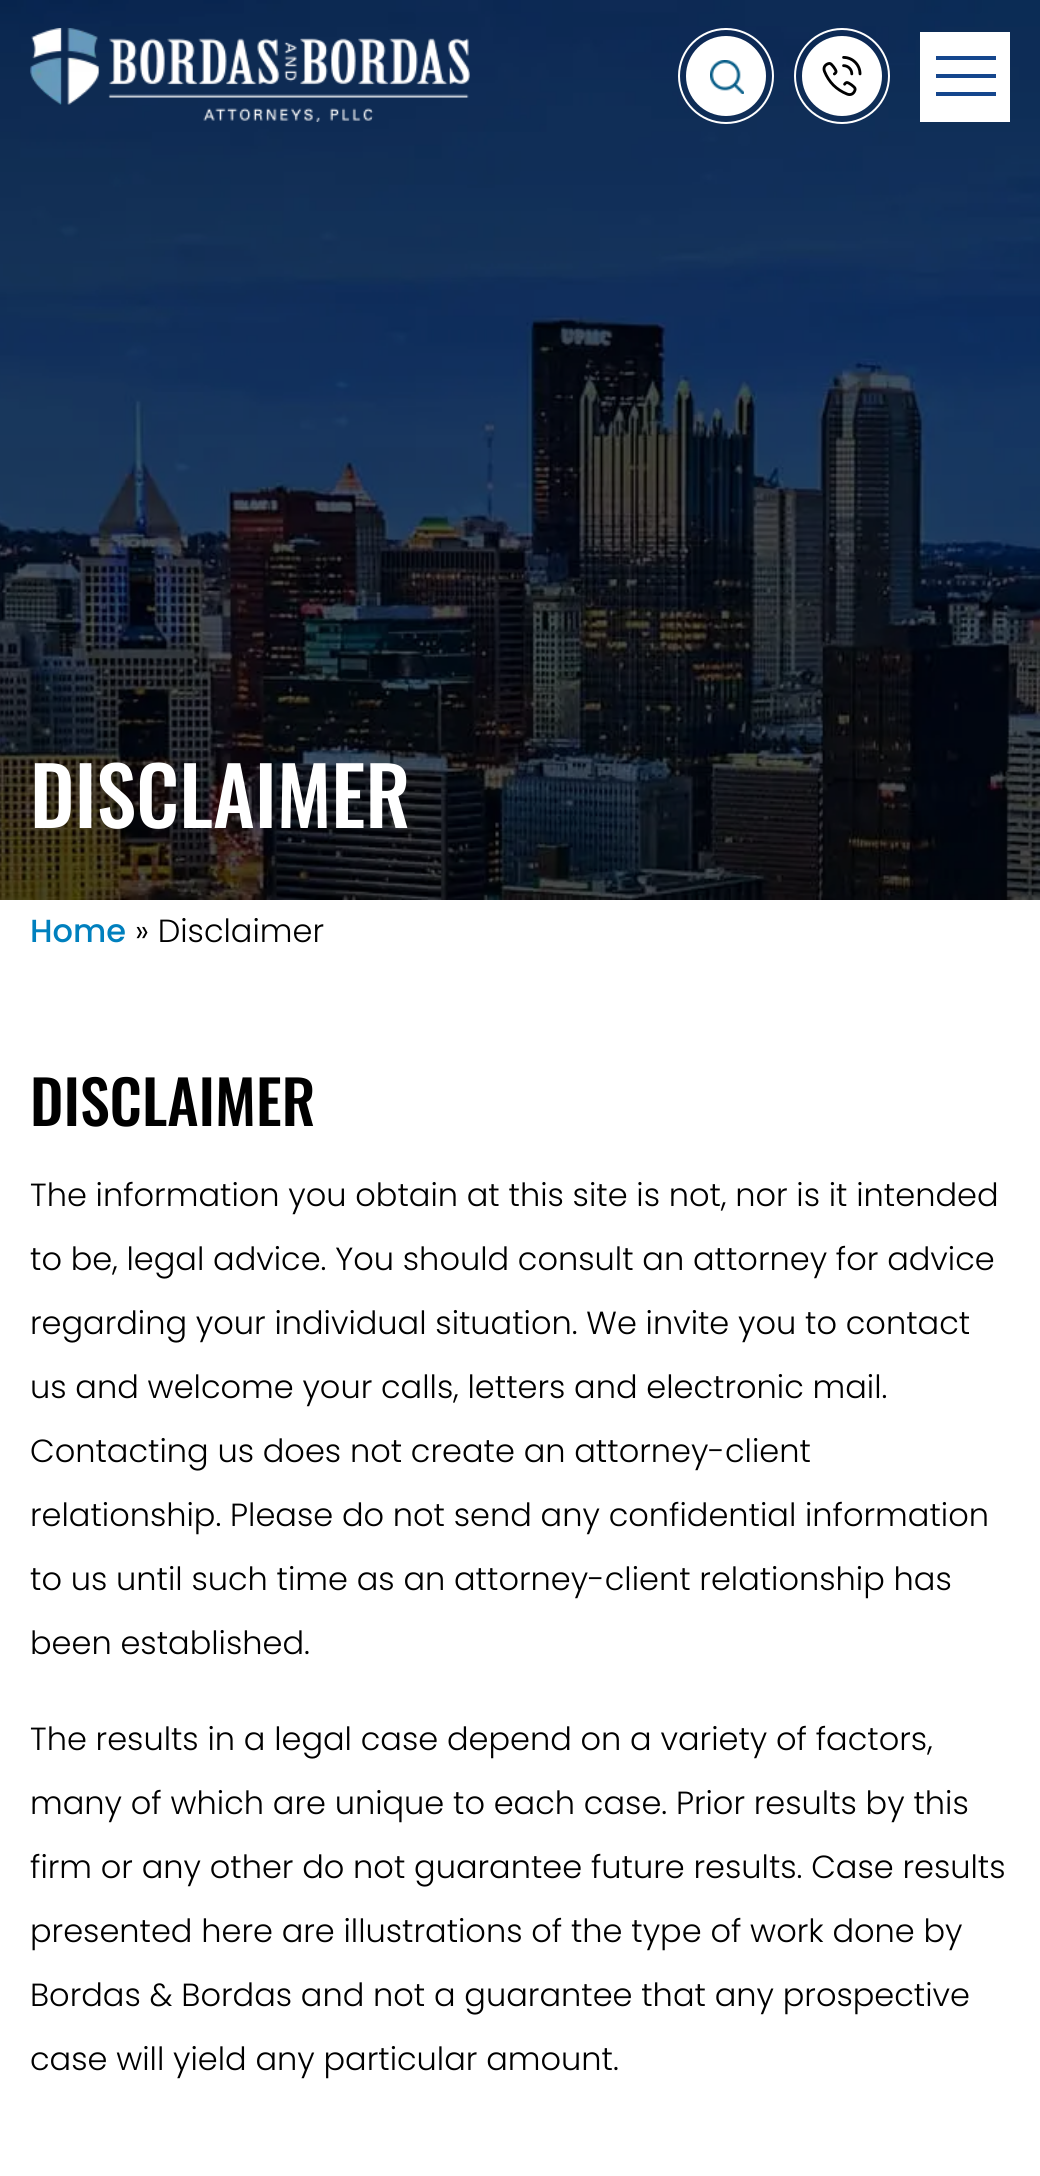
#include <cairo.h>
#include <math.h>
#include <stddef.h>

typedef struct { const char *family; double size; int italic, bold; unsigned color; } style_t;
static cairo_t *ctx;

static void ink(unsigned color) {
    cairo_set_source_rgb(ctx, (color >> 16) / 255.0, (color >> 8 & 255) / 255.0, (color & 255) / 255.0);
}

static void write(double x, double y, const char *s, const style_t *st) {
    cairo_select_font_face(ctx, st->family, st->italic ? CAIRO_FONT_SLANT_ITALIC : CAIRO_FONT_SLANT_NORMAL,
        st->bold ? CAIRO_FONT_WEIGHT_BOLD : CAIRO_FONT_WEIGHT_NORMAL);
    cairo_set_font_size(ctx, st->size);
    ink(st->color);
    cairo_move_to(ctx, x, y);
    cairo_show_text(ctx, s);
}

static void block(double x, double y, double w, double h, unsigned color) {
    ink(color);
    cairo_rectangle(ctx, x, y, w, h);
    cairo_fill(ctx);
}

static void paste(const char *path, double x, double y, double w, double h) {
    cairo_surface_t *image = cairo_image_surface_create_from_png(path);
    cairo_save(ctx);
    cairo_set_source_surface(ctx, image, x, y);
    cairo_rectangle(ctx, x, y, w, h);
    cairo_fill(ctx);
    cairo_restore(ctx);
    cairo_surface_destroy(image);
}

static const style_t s1 = {"Oswald Medium", 80, 0, 0, 0xffffff};
static const style_t s2 = {"Poppins Medium", 32, 0, 0, 0x0080be};
static const style_t s3 = {"Poppins Light", 32, 0, 0, 0x000000};
static const style_t s4 = {"Oswald Medium", 60, 0, 0, 0x000000};

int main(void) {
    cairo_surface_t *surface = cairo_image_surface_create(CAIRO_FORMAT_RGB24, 1040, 2176);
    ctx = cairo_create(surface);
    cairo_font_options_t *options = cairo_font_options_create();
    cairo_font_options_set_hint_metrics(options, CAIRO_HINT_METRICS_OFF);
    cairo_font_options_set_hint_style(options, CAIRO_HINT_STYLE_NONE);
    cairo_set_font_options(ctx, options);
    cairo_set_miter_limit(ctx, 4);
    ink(0xffffff);
    cairo_paint(ctx);
    paste("pic4.png", 0, 0, 1040, 900);
    paste("pic1.png", 30, 28, 440, 94);
    cairo_arc(ctx, 726, 76, 47, 0, 2 * M_PI);
    ink(0xffffff);
    cairo_stroke(ctx);
    cairo_arc(ctx, 726, 76, 40, 0, 2 * M_PI);
    cairo_fill(ctx);
    paste("pic2.png", 710, 60, 34, 34);
    cairo_arc(ctx, 842, 76, 47, 0, 2 * M_PI);
    cairo_stroke(ctx);
    cairo_arc(ctx, 842, 76, 40, 0, 2 * M_PI);
    cairo_fill(ctx);
    paste("pic3.png", 822, 56, 40, 40);
    block(920, 32, 90, 90, 0xffffff);
    block(936, 56, 60, 4, 0x15468d);
    block(936, 74, 60, 4, 0x15468d);
    block(936, 92, 60, 4, 0x15468d);
    write(30, 828, "DISCLAIMER", &s1);
    write(30, 942, "Home", &s2);
    write(135, 942, "» Disclaimer", &s3);
    write(30, 1126, "DISCLAIMER", &s4);
    write(30, 1206, "The information you obtain at this site is not, nor is it intended", &s3);
    write(30, 1270, "to be, legal advice. You should consult an attorney for advice", &s3);
    write(30, 1334, "regarding your individual situation. We invite you to contact", &s3);
    write(30, 1398, "us and welcome your calls, letters and electronic mail.", &s3);
    write(30, 1462, "Contacting us does not create an attorney-client", &s3);
    write(30, 1526, "relationship. Please do not send any confidential information", &s3);
    write(30, 1590, "to us until such time as an attorney-client relationship has", &s3);
    write(30, 1654, "been established.", &s3);
    write(30, 1750, "The results in a legal case depend on a variety of factors,", &s3);
    write(30, 1814, "many of which are unique to each case. Prior results by this", &s3);
    write(30, 1878, "firm or any other do not guarantee future results. Case results", &s3);
    write(30, 1942, "presented here are illustrations of the type of work done by", &s3);
    write(30, 2006, "Bordas & Bordas and not a guarantee that any prospective", &s3);
    write(30, 2070, "case will yield any particular amount.", &s3);
    cairo_surface_write_to_png(surface, "screenshot.png");
    cairo_font_options_destroy(options);
    cairo_destroy(ctx);
    cairo_surface_destroy(surface);
    return 0;
}
